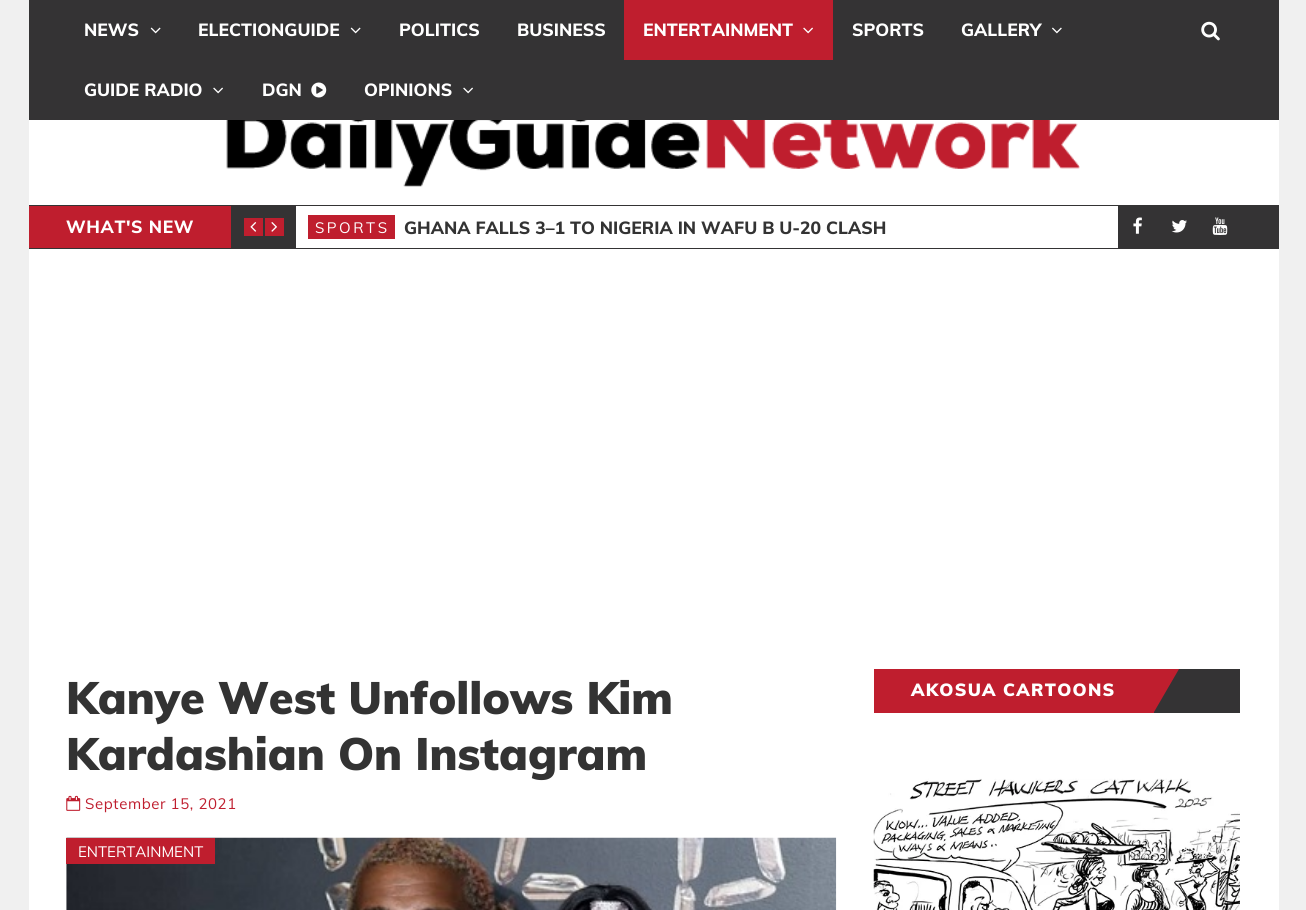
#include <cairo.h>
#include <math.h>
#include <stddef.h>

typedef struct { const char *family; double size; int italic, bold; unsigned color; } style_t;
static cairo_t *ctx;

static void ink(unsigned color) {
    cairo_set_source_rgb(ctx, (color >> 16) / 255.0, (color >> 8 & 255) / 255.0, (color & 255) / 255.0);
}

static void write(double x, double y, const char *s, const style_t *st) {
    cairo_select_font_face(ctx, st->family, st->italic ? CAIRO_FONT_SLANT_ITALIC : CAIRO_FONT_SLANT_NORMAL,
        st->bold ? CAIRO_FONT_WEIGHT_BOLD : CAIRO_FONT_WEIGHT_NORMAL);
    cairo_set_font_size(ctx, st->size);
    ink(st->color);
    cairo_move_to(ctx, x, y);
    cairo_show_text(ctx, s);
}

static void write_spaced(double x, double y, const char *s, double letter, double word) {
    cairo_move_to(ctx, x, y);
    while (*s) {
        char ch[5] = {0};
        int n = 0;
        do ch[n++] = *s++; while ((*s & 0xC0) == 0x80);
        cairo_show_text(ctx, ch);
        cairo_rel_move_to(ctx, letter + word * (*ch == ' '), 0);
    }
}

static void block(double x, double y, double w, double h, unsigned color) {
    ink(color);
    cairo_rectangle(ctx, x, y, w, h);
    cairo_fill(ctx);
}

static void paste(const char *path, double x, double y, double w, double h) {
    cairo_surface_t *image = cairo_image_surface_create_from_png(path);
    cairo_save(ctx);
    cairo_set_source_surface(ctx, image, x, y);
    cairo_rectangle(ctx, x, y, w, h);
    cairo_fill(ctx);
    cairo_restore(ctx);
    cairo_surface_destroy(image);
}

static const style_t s1 = {"Muli ExtraBold", 17.5, 0, 0, 0xffffff};
static const style_t s2 = {"Muli ExtraBold", 17.5, 0, 0, 0x333333};
static const style_t s3 = {"Muli Black", 45, 0, 0, 0x333333};
static const style_t s4 = {"Muli", 15, 0, 0, 0xffffff};

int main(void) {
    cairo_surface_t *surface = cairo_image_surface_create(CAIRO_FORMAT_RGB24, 1306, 910);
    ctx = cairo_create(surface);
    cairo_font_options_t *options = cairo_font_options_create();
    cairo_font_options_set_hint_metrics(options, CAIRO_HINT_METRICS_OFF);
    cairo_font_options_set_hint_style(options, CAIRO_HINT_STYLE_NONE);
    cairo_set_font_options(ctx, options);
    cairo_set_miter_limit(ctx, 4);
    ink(0xf0f0f0);
    cairo_paint(ctx);
    block(29, 120, 1250, 790, 0xffffff);
    block(29, 0, 1250, 120, 0x343334);
    write(84, 36, "NEWS", &s1);
    paste("pic1.png", 150, 27, 11, 7);
    write(198, 36, "ELECTIONGUIDE", &s1);
    paste("pic1.png", 350, 27, 11, 7);
    write(399, 36, "POLITICS", &s1);
    write(517, 36, "BUSINESS", &s1);
    block(624, 0, 209, 60, 0xbf1e2e);
    write(643, 36, "ENTERTAINMENT", &s1);
    paste("pic2.png", 803, 27, 10, 7);
    write(852, 36, "SPORTS", &s1);
    write(961, 36, "GALLERY", &s1);
    paste("pic3.png", 1052, 27, 10, 7);
    write(84, 96, "GUIDE RADIO", &s1);
    paste("pic4.png", 213, 87, 10, 7);
    write(262, 96, "DGN", &s1);
    paste("pic5.png", 311, 82, 16, 16);
    write(364, 96, "OPINIONS", &s1);
    paste("pic4.png", 463, 87, 10, 7);
    paste("pic6.png", 1201, 21, 19, 20);
    paste("pic7.png", 226, 120, 854, 67);
    block(29, 205, 1250, 1, 0x343334);
    block(29, 248, 1250, 1, 0x343334);
    block(29, 206, 202, 42, 0xbf1e2e);
    ink(0xffffff);
    write_spaced(66, 233, "WHAT'S NEW", 0.6, 0);
    block(231, 206, 65, 42, 0x343334);
    block(244, 218, 19, 18, 0xbf1e2e);
    paste("pic8.png", 250, 222, 7, 10);
    block(265, 218, 19, 18, 0xbf1e2e);
    paste("pic9.png", 271, 222, 6, 10);
    block(308, 215, 87, 24, 0xbf1e2e);
    cairo_select_font_face(ctx, "Muli", CAIRO_FONT_SLANT_NORMAL, CAIRO_FONT_WEIGHT_NORMAL);
    cairo_set_font_size(ctx, 15);
    ink(0xffffff);
    write_spaced(315, 233, "SPORTS", 2.5, 0);
    write(404, 234, "GHANA FALLS 3–1 TO NIGERIA IN WAFU B U-20 CLASH", &s2);
    block(1118, 206, 161, 42, 0x343334);
    paste("pic10.png", 1133, 217, 9, 17);
    paste("pic11.png", 1171, 220, 16, 13);
    paste("pic12.png", 1212, 217, 16, 18);
    write(66, 714, "Kanye West Unfollows Kim", &s3);
    write(66, 770, "Kardashian On Instagram", &s3);
    paste("pic13.png", 66, 795, 15, 16);
    cairo_select_font_face(ctx, "Muli", CAIRO_FONT_SLANT_NORMAL, CAIRO_FONT_WEIGHT_NORMAL);
    cairo_set_font_size(ctx, 15);
    ink(0xbf1e2e);
    write_spaced(85, 809, "September 15, 2021", 0.6, 0);
    paste("pic14.png", 66, 837, 771, 73);
    block(66, 838, 149, 26, 0xbf1e2e);
    write(78, 857, "ENTERTAINMENT", &s4);
    block(1154, 669, 86, 44, 0x343334);
    block(874, 669, 280, 44, 0xbf1e2e);
    cairo_select_font_face(ctx, "Muli Black", CAIRO_FONT_SLANT_NORMAL, CAIRO_FONT_WEIGHT_NORMAL);
    cairo_set_font_size(ctx, 17.5);
    ink(0xffffff);
    write_spaced(911, 696, "AKOSUA CARTOONS", 1.25, 0);
    ink(0xbf1e2e);
    cairo_new_path(ctx);
    cairo_move_to(ctx, 1154, 669);
    cairo_line_to(ctx, 1179, 669);
    cairo_line_to(ctx, 1154, 712);
    cairo_close_path(ctx);
    cairo_fill(ctx);
    paste("pic15.png", 873, 778, 367, 132);
    cairo_surface_write_to_png(surface, "screenshot.png");
    cairo_font_options_destroy(options);
    cairo_destroy(ctx);
    cairo_surface_destroy(surface);
    return 0;
}
